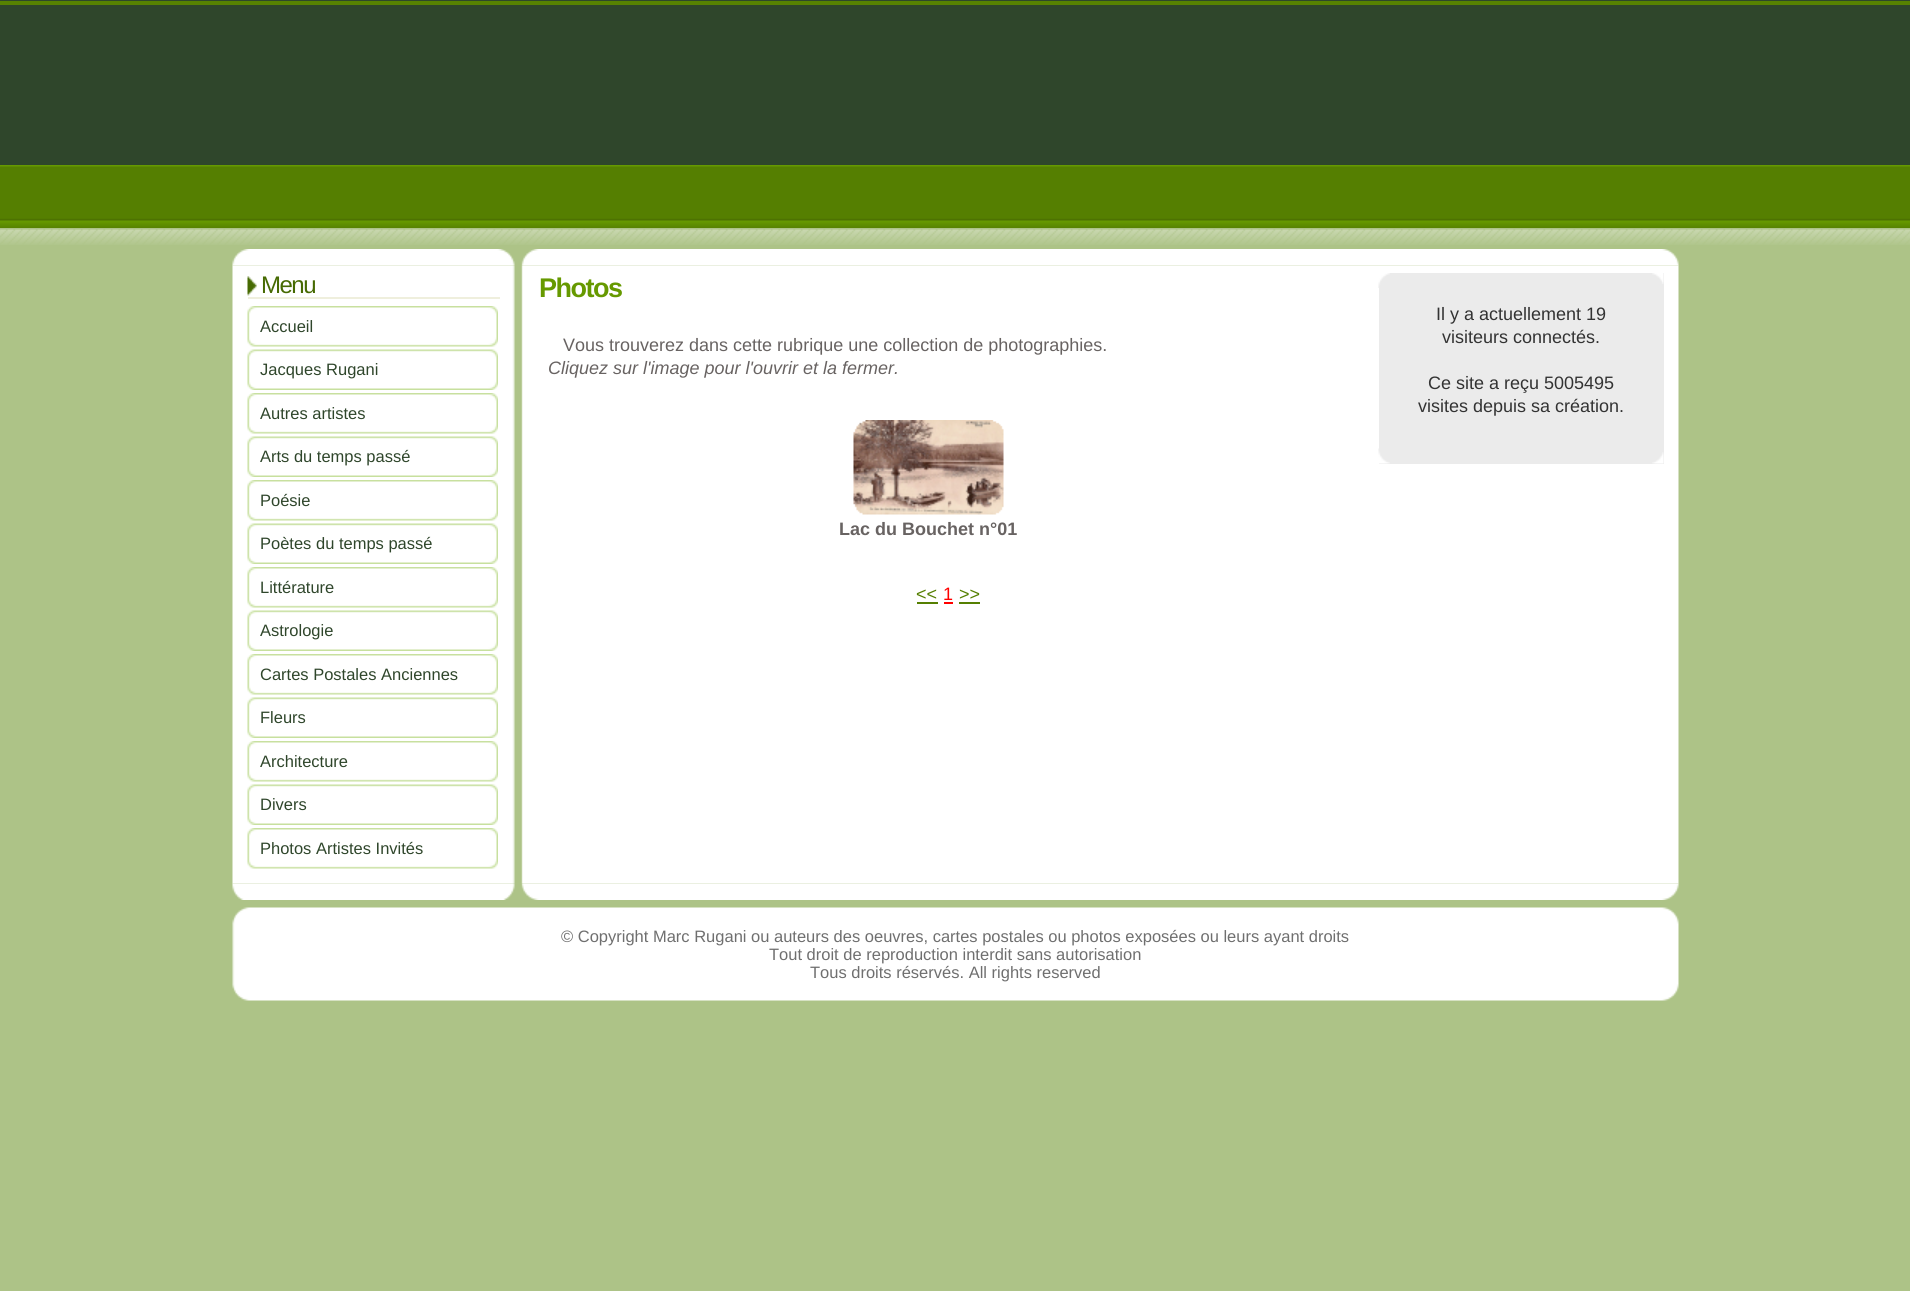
#include <cairo.h>
#include <math.h>
#include <stddef.h>

typedef struct { const char *family; double size; int italic, bold; unsigned color; } style_t;
static cairo_t *ctx;

static void ink(unsigned color) {
    cairo_set_source_rgb(ctx, (color >> 16) / 255.0, (color >> 8 & 255) / 255.0, (color & 255) / 255.0);
}

static void write(double x, double y, const char *s, const style_t *st) {
    cairo_select_font_face(ctx, st->family, st->italic ? CAIRO_FONT_SLANT_ITALIC : CAIRO_FONT_SLANT_NORMAL,
        st->bold ? CAIRO_FONT_WEIGHT_BOLD : CAIRO_FONT_WEIGHT_NORMAL);
    cairo_set_font_size(ctx, st->size);
    ink(st->color);
    cairo_move_to(ctx, x, y);
    cairo_show_text(ctx, s);
}

static void write_spaced(double x, double y, const char *s, double letter, double word) {
    cairo_move_to(ctx, x, y);
    while (*s) {
        char ch[5] = {0};
        int n = 0;
        do ch[n++] = *s++; while ((*s & 0xC0) == 0x80);
        cairo_show_text(ctx, ch);
        cairo_rel_move_to(ctx, letter + word * (*ch == ' '), 0);
    }
}

static void block(double x, double y, double w, double h, unsigned color) {
    ink(color);
    cairo_rectangle(ctx, x, y, w, h);
    cairo_fill(ctx);
}

static void paste(const char *path, double x, double y, double w, double h) {
    cairo_surface_t *image = cairo_image_surface_create_from_png(path);
    cairo_save(ctx);
    cairo_set_source_surface(ctx, image, x, y);
    cairo_rectangle(ctx, x, y, w, h);
    cairo_fill(ctx);
    cairo_restore(ctx);
    cairo_surface_destroy(image);
}

static const style_t s1 = {"Liberation Sans", 16.5, 0, 0, 0x2f462b};
static const style_t s2 = {"Liberation Sans", 18, 0, 0, 0x686362};
static const style_t s3 = {"Liberation Sans", 18, 1, 0, 0x686362};
static const style_t s4 = {"Liberation Sans", 18, 0, 1, 0x686362};
static const style_t s5 = {"Liberation Sans", 18, 0, 0, 0x557f01};
static const style_t s6 = {"Liberation Sans", 18, 0, 0, 0xff0000};
static const style_t s7 = {"Liberation Sans", 18, 0, 0, 0x333333};
static const style_t s8 = {"Liberation Sans", 16.5, 0, 0, 0x6f6f6f};

int main(void) {
    cairo_surface_t *surface = cairo_image_surface_create(CAIRO_FORMAT_RGB24, 1910, 1291);
    ctx = cairo_create(surface);
    cairo_font_options_t *options = cairo_font_options_create();
    cairo_font_options_set_hint_metrics(options, CAIRO_HINT_METRICS_OFF);
    cairo_font_options_set_hint_style(options, CAIRO_HINT_STYLE_NONE);
    cairo_set_font_options(ctx, options);
    cairo_set_miter_limit(ctx, 4);
    ink(0xadc387);
    cairo_paint(ctx);
    paste("pic1.png", 0, 229, 1910, 16);
    block(0, 0, 1910, 165, 0x2f462b);
    block(0, 1, 1910, 4, 0x578201);
    paste("pic2.png", 0, 165, 1910, 63);
    paste("pic3.png", 232, 249, 1447, 17);
    paste("pic4.png", 232, 265, 1447, 619);
    paste("pic5.png", 247, 276, 10, 20);
    block(248, 297, 252, 2, 0xefefdd);
    cairo_select_font_face(ctx, "Liberation Sans", CAIRO_FONT_SLANT_NORMAL, CAIRO_FONT_WEIGHT_NORMAL);
    cairo_set_font_size(ctx, 24);
    ink(0x466a02);
    write_spaced(261, 293, "Menu", -1.5, 0);
    paste("pic6.png", 247, 306, 251, 41);
    write(260, 332, "Accueil", &s1);
    paste("pic7.png", 247, 349, 251, 41);
    write(260, 375, "Jacques Rugani", &s1);
    paste("pic6.png", 247, 393, 251, 41);
    write(260, 419, "Autres artistes", &s1);
    paste("pic7.png", 247, 436, 251, 41);
    write(260, 462, "Arts du temps passé", &s1);
    paste("pic6.png", 247, 480, 251, 41);
    write(260, 506, "Poésie", &s1);
    paste("pic7.png", 247, 523, 251, 41);
    write(260, 549, "Poètes du temps passé", &s1);
    paste("pic6.png", 247, 567, 251, 41);
    write(260, 593, "Littérature", &s1);
    paste("pic7.png", 247, 610, 251, 41);
    write(260, 636, "Astrologie", &s1);
    paste("pic6.png", 247, 654, 251, 41);
    write(260, 680, "Cartes Postales Anciennes", &s1);
    paste("pic7.png", 247, 697, 251, 41);
    write(260, 723, "Fleurs", &s1);
    paste("pic6.png", 247, 741, 251, 41);
    write(260, 767, "Architecture", &s1);
    paste("pic7.png", 247, 784, 251, 41);
    write(260, 810, "Divers", &s1);
    paste("pic6.png", 247, 828, 251, 41);
    write(260, 854, "Photos Artistes Invités", &s1);
    cairo_select_font_face(ctx, "Liberation Sans", CAIRO_FONT_SLANT_NORMAL, CAIRO_FONT_WEIGHT_BOLD);
    cairo_set_font_size(ctx, 27);
    ink(0x669900);
    write_spaced(539, 297, "Photos", -1.5, 0);
    write(563, 351, "Vous trouverez dans cette rubrique une collection de photographies.", &s2);
    write(548, 374, "Cliquez sur l'image pour l'ouvrir et la fermer.", &s3);
    paste("pic8.png", 853, 420, 151, 95);
    write(839, 535, "Lac du Bouchet n°01", &s4);
    write(916, 600, "<<", &s5);
    block(917, 602, 21, 2, 0x557f01);
    write(943, 600, "1", &s6);
    block(944, 602, 9, 2, 0xff0000);
    write(959, 600, ">>", &s5);
    block(959, 602, 21, 2, 0x557f01);
    block(1379, 273, 285, 191, 0xebebeb);
    paste("pic9.png", 1652, 273, 12, 11);
    paste("pic10.png", 1378, 273, 12, 15);
    paste("pic11.png", 1378, 448, 12, 16);
    paste("pic12.png", 1652, 452, 12, 12);
    write(1436, 320, "Il y a actuellement 19", &s7);
    write(1442, 343, "visiteurs connectés.", &s7);
    write(1428, 389, "Ce site a reçu 5005495", &s7);
    write(1418, 412, "visites depuis sa création.", &s7);
    paste("pic13.png", 232, 883, 1447, 17);
    paste("pic14.png", 232, 907, 1447, 17);
    paste("pic15.png", 232, 924, 1447, 60);
    write(561, 942, "© Copyright Marc Rugani ou auteurs des oeuvres, cartes postales ou photos exposées ou leurs ayant droits", &s8);
    write(769, 960, "Tout droit de reproduction interdit sans autorisation", &s8);
    write(810, 978, "Tous droits réservés. All rights reserved", &s8);
    paste("pic16.png", 232, 984, 1447, 17);
    cairo_surface_write_to_png(surface, "screenshot.png");
    cairo_font_options_destroy(options);
    cairo_destroy(ctx);
    cairo_surface_destroy(surface);
    return 0;
}
